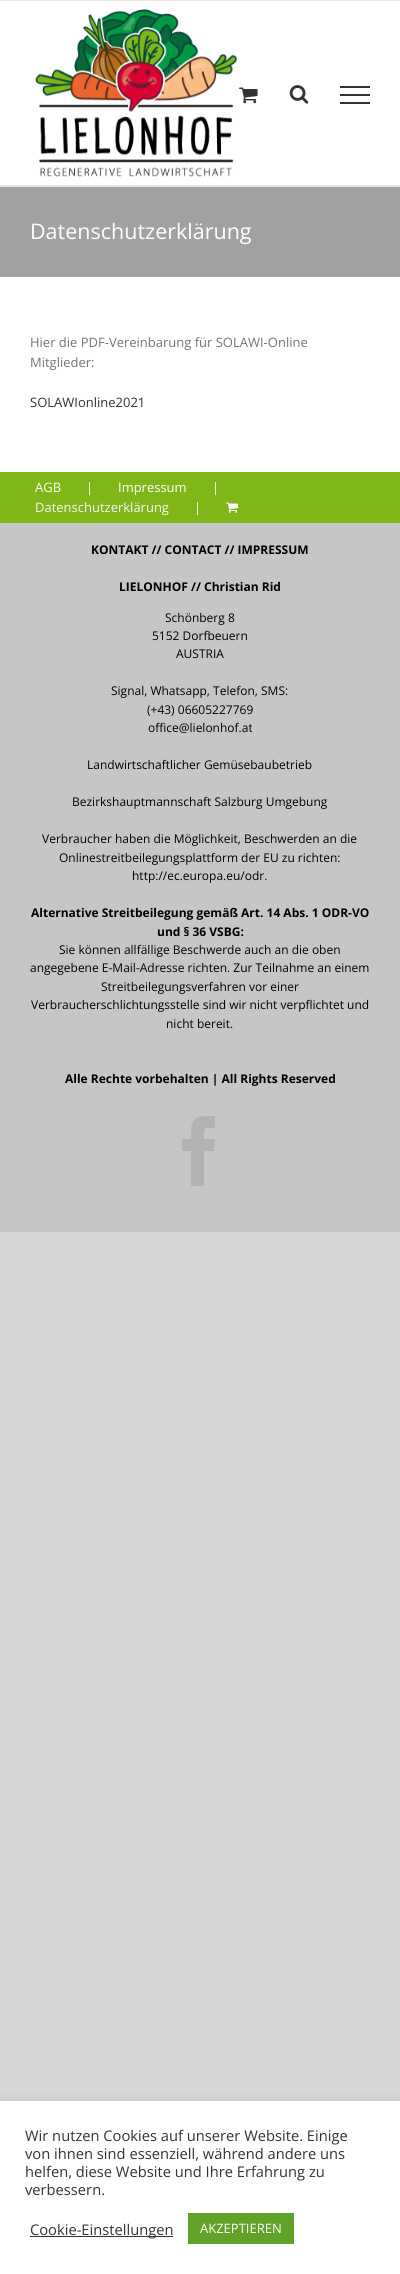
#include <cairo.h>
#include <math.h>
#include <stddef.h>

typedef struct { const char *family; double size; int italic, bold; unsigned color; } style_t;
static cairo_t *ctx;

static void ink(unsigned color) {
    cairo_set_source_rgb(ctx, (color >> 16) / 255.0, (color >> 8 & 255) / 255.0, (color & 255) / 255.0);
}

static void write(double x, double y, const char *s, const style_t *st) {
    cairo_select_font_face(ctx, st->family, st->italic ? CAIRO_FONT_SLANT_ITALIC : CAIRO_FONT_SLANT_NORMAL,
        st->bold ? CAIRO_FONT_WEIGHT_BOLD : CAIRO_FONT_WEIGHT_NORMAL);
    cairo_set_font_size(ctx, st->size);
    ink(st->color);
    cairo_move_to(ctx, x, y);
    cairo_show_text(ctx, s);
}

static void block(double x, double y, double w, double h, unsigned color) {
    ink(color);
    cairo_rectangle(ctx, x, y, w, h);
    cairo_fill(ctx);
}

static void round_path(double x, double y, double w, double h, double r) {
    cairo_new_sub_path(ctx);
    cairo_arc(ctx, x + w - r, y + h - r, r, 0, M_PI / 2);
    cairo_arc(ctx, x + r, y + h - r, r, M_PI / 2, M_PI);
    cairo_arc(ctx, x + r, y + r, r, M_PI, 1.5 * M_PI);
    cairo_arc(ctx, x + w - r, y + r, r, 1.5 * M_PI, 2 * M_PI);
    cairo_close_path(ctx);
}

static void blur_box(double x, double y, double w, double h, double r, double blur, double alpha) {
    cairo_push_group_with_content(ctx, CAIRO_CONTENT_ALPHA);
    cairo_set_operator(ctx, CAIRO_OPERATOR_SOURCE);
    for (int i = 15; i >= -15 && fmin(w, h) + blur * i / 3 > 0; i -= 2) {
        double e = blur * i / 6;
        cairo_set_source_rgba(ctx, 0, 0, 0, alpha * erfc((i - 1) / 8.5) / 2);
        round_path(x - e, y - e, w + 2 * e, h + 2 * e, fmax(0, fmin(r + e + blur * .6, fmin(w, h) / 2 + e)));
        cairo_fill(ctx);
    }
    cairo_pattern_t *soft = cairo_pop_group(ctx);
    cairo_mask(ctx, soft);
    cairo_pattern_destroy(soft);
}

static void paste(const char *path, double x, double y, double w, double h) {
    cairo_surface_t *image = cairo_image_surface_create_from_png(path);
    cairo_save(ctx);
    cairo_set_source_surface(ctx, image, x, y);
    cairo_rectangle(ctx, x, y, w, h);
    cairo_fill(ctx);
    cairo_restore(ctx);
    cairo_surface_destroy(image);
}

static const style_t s1 = {"Open Sans", 21.5, 0, 0, 0xffffff};
static const style_t s2 = {"Open Sans", 13, 0, 0, 0x747474};
static const style_t s3 = {"Open Sans", 13, 0, 0, 0x333333};
static const style_t s4 = {"Open Sans", 13, 0, 0, 0xffffff};
static const style_t s5 = {"Open Sans", 13, 0, 0, 0xf4f8f7};
static const style_t s6 = {"Open Sans", 12, 0, 1, 0x000000};
static const style_t s7 = {"Open Sans", 12, 0, 0, 0x000000};
static const style_t s8 = {"Open Sans", 14.7, 0, 0, 0x333333};

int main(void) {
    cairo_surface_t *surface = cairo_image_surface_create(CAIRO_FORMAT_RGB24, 400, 2274);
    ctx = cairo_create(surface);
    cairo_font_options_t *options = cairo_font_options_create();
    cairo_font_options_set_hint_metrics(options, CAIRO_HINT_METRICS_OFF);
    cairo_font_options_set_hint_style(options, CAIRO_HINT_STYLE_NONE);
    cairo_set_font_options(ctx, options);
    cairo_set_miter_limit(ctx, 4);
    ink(0xd7d6d6);
    cairo_paint(ctx);
    block(0, 1, 400, 471, 0xffffff);
    block(0, 0, 400, 1, 0xe5e5e5);
    block(0, 185, 400, 2, 0xe5e5e5);
    paste("pic1.png", 35, 9, 203, 168);
    paste("pic2.png", 239, 87, 19, 17);
    paste("pic3.png", 289, 85, 20, 19);
    block(340, 86, 30, 2, 0x333333);
    block(340, 94, 30, 2, 0x333333);
    block(340, 102, 30, 2, 0x333333);
    block(0, 187, 400, 90, 0xa1a1a1);
    write(30, 239, "Datenschutzerklärung", &s1);
    write(30, 347, "Hier die PDF-Vereinbarung für SOLAWI-Online", &s2);
    write(30, 367, "Mitglieder:", &s2);
    write(30, 407, "SOLAWIonline2021", &s3);
    block(0, 472, 400, 51, 0x7fb718);
    write(35, 492, "AGB", &s4);
    write(86, 492, "|", &s4);
    write(118, 492, "Impressum", &s4);
    write(212, 492, "|", &s4);
    write(35, 512, "Datenschutzerklärung", &s5);
    write(194, 512, "|", &s4);
    paste("pic4.png", 226, 502, 13, 11);
    block(0, 523, 400, 709, 0xc6c6c6);
    write(91, 554, "KONTAKT // CONTACT // IMPRESSUM", &s6);
    write(119, 591, "LIELONHOF // Christian Rid", &s6);
    write(165, 622, "Schönberg 8", &s7);
    write(152, 640, "5152 Dorfbeuern", &s7);
    write(176, 658, "AUSTRIA", &s7);
    write(111, 695, "Signal, Whatsapp, Telefon, SMS:", &s7);
    write(147, 714, "(+43) 06605227769", &s7);
    write(148, 732, "office@lielonhof.at", &s7);
    write(87, 769, "Landwirtschaftlicher Gemüsebaubetrieb", &s7);
    write(72, 806, "Bezirkshauptmannschaft Salzburg Umgebung", &s7);
    write(42, 843, "Verbraucher haben die Möglichkeit, Beschwerden an die", &s7);
    write(59, 862, "Onlinestreitbeilegungsplattform der EU zu richten:", &s7);
    write(132, 880, "http://ec.europa.eu/odr.", &s7);
    write(31, 917, "Alternative Streitbeilegung gemäß Art. 14 Abs. 1 ODR-VO", &s6);
    write(157, 936, "und § 36 VSBG:", &s6);
    write(59, 954, "Sie können allfällige Beschwerde auch an die oben", &s7);
    write(30, 972, "angegebene E-Mail-Adresse richten. Zur Teilnahme an einem", &s7);
    write(101, 991, "Streitbeilegungsverfahren vor einer", &s7);
    write(31, 1009, "Verbraucherschlichtungsstelle sind wir nicht verpflichtet und", &s7);
    write(166, 1028, "nicht bereit.", &s7);
    write(65, 1083, "Alle Rechte vorbehalten | All Rights Reserved", &s6);
    ink(0xb2b2b2);
    cairo_new_path(ctx);
    cairo_move_to(ctx, 204, 1186);
    cairo_line_to(ctx, 191, 1186);
    cairo_line_to(ctx, 191, 1151);
    cairo_line_to(ctx, 182, 1151);
    cairo_line_to(ctx, 182, 1139);
    cairo_line_to(ctx, 191, 1139);
    cairo_curve_to(ctx, 191, 1116, 193, 1116, 215, 1116);
    cairo_line_to(ctx, 215, 1128);
    cairo_curve_to(ctx, 203, 1128, 204, 1127, 204, 1139);
    cairo_line_to(ctx, 215, 1139);
    cairo_line_to(ctx, 214, 1151);
    cairo_line_to(ctx, 204, 1151);
    cairo_close_path(ctx);
    cairo_fill(ctx);
    ink(0xacabab);
    blur_box(0, 2100, 400, 173, 0, 5, 0.3);
    block(0, 2101, 400, 173, 0xffffff);
    write(25, 2141, "Wir nutzen Cookies auf unserer Website. Einige", &s8);
    write(25, 2159, "von ihnen sind essenziell, während andere uns", &s8);
    write(25, 2177, "helfen, diese Website und Ihre Erfahrung zu", &s8);
    write(25, 2195, "verbessern.", &s8);
    block(30, 2236, 143, 1, 0x333333);
    write(30, 2235, "Cookie-Einstellungen", &s8);
    block(188, 2213, 106, 31, 0x61a229);
    write(200, 2233, "AKZEPTIEREN", &s4);
    cairo_surface_write_to_png(surface, "screenshot.png");
    cairo_font_options_destroy(options);
    cairo_destroy(ctx);
    cairo_surface_destroy(surface);
    return 0;
}
